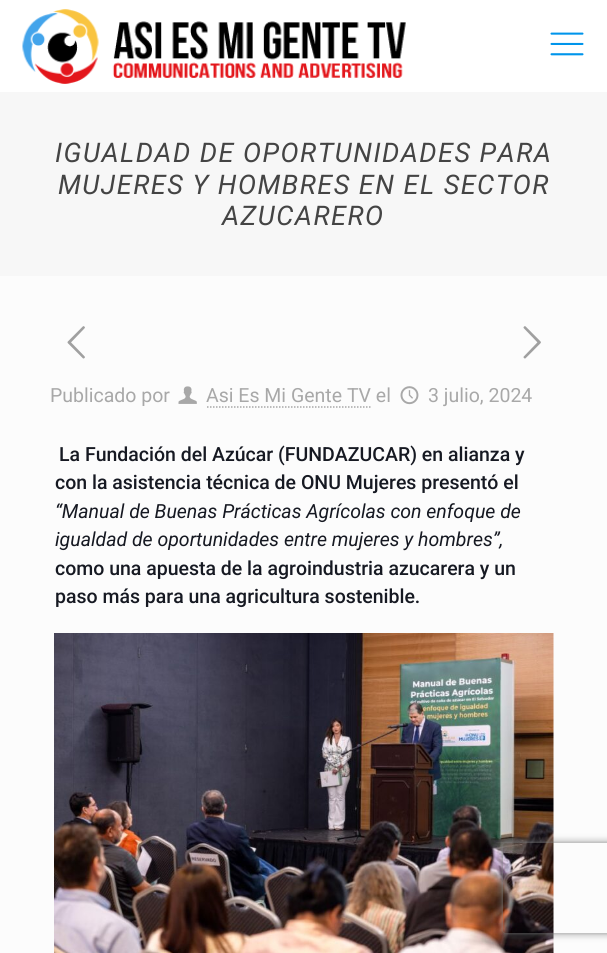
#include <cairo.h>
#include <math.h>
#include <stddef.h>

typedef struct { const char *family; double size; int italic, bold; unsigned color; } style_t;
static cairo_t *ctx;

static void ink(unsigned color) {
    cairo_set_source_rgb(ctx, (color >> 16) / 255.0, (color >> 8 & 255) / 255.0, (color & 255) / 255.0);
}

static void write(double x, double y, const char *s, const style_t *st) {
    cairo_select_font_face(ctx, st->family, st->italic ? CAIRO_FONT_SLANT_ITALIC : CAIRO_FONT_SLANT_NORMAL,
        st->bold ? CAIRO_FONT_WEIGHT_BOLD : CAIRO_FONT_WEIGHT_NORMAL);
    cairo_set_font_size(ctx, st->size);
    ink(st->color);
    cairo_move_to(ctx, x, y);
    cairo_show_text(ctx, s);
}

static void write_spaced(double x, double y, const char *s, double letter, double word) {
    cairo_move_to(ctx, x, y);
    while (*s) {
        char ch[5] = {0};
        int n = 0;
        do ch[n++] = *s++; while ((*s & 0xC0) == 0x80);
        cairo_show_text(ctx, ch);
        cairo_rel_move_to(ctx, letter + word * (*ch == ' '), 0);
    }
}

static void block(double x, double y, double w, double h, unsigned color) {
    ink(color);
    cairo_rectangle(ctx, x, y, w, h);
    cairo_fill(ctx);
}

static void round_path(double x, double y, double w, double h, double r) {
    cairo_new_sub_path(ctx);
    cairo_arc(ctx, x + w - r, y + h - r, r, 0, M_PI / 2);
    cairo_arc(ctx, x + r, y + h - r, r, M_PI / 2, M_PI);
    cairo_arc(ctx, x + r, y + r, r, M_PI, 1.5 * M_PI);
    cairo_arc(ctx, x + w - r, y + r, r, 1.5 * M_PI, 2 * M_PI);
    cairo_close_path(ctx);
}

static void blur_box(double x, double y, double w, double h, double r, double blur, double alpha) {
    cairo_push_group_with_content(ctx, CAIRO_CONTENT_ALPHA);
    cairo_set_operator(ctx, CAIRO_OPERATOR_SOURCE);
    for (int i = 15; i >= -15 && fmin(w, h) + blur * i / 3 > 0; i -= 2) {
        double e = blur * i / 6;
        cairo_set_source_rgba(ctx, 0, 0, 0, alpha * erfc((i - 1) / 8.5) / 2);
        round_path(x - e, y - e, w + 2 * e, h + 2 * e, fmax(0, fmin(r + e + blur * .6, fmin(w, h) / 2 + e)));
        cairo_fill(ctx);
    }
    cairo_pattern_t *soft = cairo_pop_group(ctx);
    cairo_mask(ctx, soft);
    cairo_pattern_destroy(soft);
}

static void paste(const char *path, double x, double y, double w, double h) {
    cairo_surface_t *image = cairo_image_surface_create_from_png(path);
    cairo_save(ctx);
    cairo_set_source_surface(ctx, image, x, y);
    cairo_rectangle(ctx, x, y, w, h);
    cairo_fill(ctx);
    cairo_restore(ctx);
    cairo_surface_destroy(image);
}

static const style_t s1 = {"Roboto", 19.5, 0, 0, 0xa8a8a8};
static const style_t s2 = {"Roboto Medium", 19.5, 0, 0, 0x161922};
static const style_t s3 = {"Roboto", 19.5, 1, 0, 0x161922};

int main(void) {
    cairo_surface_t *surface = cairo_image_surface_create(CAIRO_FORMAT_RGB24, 607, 953);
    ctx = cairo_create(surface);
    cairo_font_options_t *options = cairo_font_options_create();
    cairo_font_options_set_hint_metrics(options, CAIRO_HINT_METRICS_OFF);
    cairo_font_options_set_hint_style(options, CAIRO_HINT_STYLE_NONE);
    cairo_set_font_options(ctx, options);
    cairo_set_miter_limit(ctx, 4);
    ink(0xfcfcfc);
    cairo_paint(ctx);
    block(0, 0, 607, 92, 0xffffff);
    paste("pic1.png", 22, 9, 384, 75);
    paste("pic2.png", 550, 32, 34, 24);
    block(0, 92, 607, 184, 0xf7f7f7);
    cairo_select_font_face(ctx, "Roboto", CAIRO_FONT_SLANT_ITALIC, CAIRO_FONT_WEIGHT_NORMAL);
    cairo_set_font_size(ctx, 27);
    ink(0x444444);
    write_spaced(55, 162, "IGUALDAD DE OPORTUNIDADES PARA", 1.5, 0);
    write_spaced(58, 194, "MUJERES Y HOMBRES EN EL SECTOR", 1.5, 0);
    write_spaced(222, 225, "AZUCARERO", 1.5, 0);
    paste("pic3.png", 67, 326, 18, 33);
    paste("pic4.png", 523, 326, 18, 33);
    write(50, 402, "Publicado por", &s1);
    paste("pic5.png", 178, 386, 19, 18);
    write(206, 402, "Asi Es Mi Gente TV el", &s1);
    cairo_new_path(ctx);
    cairo_move_to(ctx, 207, 407);
    cairo_line_to(ctx, 372, 407);
    cairo_set_line_width(ctx, 1.5);
    cairo_set_dash(ctx, (double[]){1.5, 1.5}, 2, 0);
    cairo_stroke(ctx);
    paste("pic6.png", 400, 386, 19, 19);
    write(428, 402, "3 julio, 2024", &s1);
    write(59, 461, "La Fundación del Azúcar (FUNDAZUCAR) en alianza y", &s2);
    write(55, 489, "con la asistencia técnica de ONU Mujeres presentó el", &s2);
    write(55, 518, "“Manual de Buenas Prácticas Agrícolas con enfoque de", &s3);
    write(55, 546, "igualdad de oportunidades entre mujeres y hombres”,", &s3);
    write(55, 575, "como una apuesta de la agroindustria azucarera y un", &s2);
    write(55, 603, "paso más para una agricultura sostenible.", &s2);
    paste("pic7.png", 54, 633, 500, 320);
    cairo_save(ctx);
    cairo_set_fill_rule(ctx, CAIRO_FILL_RULE_EVEN_ODD);
    cairo_new_path(ctx);
    cairo_move_to(ctx, 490, 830);
    cairo_line_to(ctx, 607, 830);
    cairo_line_to(ctx, 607, 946);
    cairo_line_to(ctx, 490, 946);
    cairo_close_path(ctx);
    cairo_move_to(ctx, 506, 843);
    cairo_line_to(ctx, 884, 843);
    cairo_curve_to(ctx, 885.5, 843, 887, 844.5, 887, 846);
    cairo_line_to(ctx, 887, 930);
    cairo_curve_to(ctx, 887, 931.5, 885.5, 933, 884, 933);
    cairo_line_to(ctx, 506, 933);
    cairo_curve_to(ctx, 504.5, 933, 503, 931.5, 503, 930);
    cairo_line_to(ctx, 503, 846);
    cairo_curve_to(ctx, 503, 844.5, 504.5, 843, 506, 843);
    cairo_close_path(ctx);
    cairo_clip(ctx);
    ink(0x808080);
    blur_box(503, 843, 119, 90, 3, 4, 1);
    cairo_restore(ctx);
    cairo_surface_write_to_png(surface, "screenshot.png");
    cairo_font_options_destroy(options);
    cairo_destroy(ctx);
    cairo_surface_destroy(surface);
    return 0;
}
